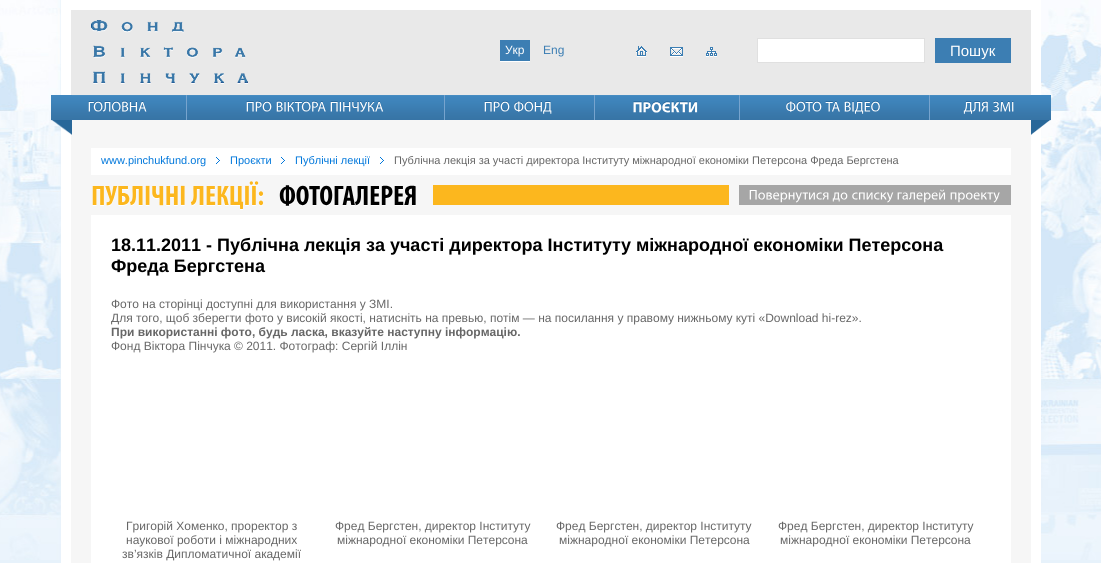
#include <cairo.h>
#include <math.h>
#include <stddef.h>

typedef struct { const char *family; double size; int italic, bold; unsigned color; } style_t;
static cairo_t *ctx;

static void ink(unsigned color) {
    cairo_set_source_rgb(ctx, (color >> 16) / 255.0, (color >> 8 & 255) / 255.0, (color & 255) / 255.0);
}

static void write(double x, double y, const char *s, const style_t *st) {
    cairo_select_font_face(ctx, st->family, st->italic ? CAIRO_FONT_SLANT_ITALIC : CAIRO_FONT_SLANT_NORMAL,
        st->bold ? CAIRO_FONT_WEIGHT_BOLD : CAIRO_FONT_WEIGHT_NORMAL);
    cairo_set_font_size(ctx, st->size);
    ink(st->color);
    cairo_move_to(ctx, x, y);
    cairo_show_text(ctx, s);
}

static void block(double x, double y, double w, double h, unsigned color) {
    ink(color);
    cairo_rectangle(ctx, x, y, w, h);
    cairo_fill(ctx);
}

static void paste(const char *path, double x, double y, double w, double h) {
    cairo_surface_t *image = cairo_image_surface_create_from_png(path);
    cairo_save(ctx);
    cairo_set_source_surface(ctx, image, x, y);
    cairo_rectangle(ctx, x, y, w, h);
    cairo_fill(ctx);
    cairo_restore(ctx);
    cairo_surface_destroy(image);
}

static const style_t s1 = {"Liberation Sans", 12, 0, 0, 0xffffff};
static const style_t s2 = {"Liberation Sans", 12, 0, 0, 0x3c7eb3};
static const style_t s3 = {"Liberation Sans", 15, 0, 0, 0xffffff};
static const style_t s4 = {"Liberation Sans", 11, 0, 0, 0x0077db};
static const style_t s5 = {"Liberation Sans", 11, 0, 0, 0x666666};
static const style_t s6 = {"Liberation Sans", 18, 0, 1, 0x000000};
static const style_t s7 = {"Liberation Sans", 12, 0, 0, 0x666666};
static const style_t s8 = {"Liberation Sans", 12, 0, 1, 0x666666};

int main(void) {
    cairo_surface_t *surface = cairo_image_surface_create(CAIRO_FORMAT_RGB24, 1101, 563);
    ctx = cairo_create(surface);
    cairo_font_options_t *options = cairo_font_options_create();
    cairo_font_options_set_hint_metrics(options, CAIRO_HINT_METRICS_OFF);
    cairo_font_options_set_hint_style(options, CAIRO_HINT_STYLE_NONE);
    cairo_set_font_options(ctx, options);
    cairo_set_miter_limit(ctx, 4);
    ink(0xe7f2fb);
    cairo_paint(ctx);
    paste("pic1.png", 0, 0, 1101, 560);
    block(71, 95, 960, 468, 0xf6f6f6);
    cairo_rectangle(ctx, 66, 5, 970, 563);
    ink(0xffffff);
    cairo_set_line_width(ctx, 10);
    cairo_stroke(ctx);
    block(71, 10, 960, 85, 0xe9e9e9);
    paste("pic2.png", 91, 20, 157, 64);
    block(500, 40, 30, 21, 0x3c7eb3);
    block(500, 61, 30, 1, 0xffffff);
    write(505, 54, "Укр", &s1);
    write(543, 54, "Eng", &s2);
    paste("pic3.png", 636, 46, 11, 11);
    paste("pic4.png", 670, 47, 13, 10);
    paste("pic5.png", 706, 47, 11, 10);
    ink(0xffffff);
    cairo_rectangle(ctx, 757.5, 38.5, 167, 24);
    cairo_fill_preserve(ctx);
    ink(0xe0e0e0);
    cairo_set_line_width(ctx, 1);
    cairo_stroke(ctx);
    block(935, 38, 76, 25, 0x3c7eb3);
    write(950, 56, "Пошук", &s3);
    paste("pic6.png", 51, 95, 21, 40);
    paste("pic7.png", 1031, 95, 20, 40);
    paste("pic8.png", 51, 95, 1000, 25);
    paste("pic9.png", 88, 100, 59, 12);
    paste("pic10.png", 186, 95, 1, 25);
    paste("pic11.png", 246, 100, 26, 12);
    paste("pic12.png", 276, 100, 50, 12);
    paste("pic13.png", 330, 101, 54, 11);
    paste("pic10.png", 444, 95, 1, 25);
    paste("pic11.png", 484, 100, 26, 12);
    paste("pic14.png", 514, 100, 38, 14);
    paste("pic10.png", 594, 95, 1, 25);
    paste("pic15.png", 633, 101, 65, 12);
    paste("pic10.png", 739, 95, 1, 25);
    paste("pic16.png", 786, 100, 36, 12);
    paste("pic17.png", 825, 101, 15, 11);
    paste("pic18.png", 844, 100, 36, 14);
    paste("pic10.png", 929, 95, 1, 25);
    paste("pic19.png", 963, 100, 25, 14);
    paste("pic20.png", 993, 100, 21, 12);
    block(91, 148, 920, 27, 0xffffff);
    write(101, 164, "www.pinchukfund.org", &s4);
    paste("pic21.png", 216, 157, 4, 7);
    write(230, 164, "Проєкти", &s4);
    paste("pic21.png", 281, 157, 4, 7);
    write(295, 164, "Публічні лекції", &s4);
    paste("pic21.png", 380, 157, 4, 7);
    write(394, 164, "Публічна лекція за участі директора Інституту міжнародної економіки Петерсона Фреда Бергстена", &s5);
    block(91, 215, 920, 348, 0xffffff);
    block(433, 185, 296, 20, 0xfcb71e);
    paste("pic22.png", 92, 185, 93, 21);
    paste("pic23.png", 190, 181, 74, 29);
    paste("pic24.png", 279, 185, 137, 22);
    block(739, 185, 272, 20, 0xa6a6a6);
    paste("pic25.png", 749, 190, 80, 13);
    paste("pic26.png", 832, 192, 16, 10);
    paste("pic27.png", 852, 192, 42, 11);
    paste("pic28.png", 897, 189, 49, 14);
    paste("pic29.png", 950, 192, 50, 11);
    write(111, 251, "18.11.2011 - Публічна лекція за участі директора Інституту міжнародної економіки Петерсона", &s6);
    write(111, 272, "Фреда Бергстена", &s6);
    write(111, 308, "Фото на сторінці доступні для використання у ЗМІ.", &s7);
    write(111, 322, "Для того, щоб зберегти фото у високій якості, натисніть на превью, потім — на посилання у правому нижньому куті «Download hi-rez».", &s7);
    write(111, 336, "При використанні фото, будь ласка, вказуйте наступну інформацію.", &s8);
    write(111, 350, "Фонд Віктора Пінчука © 2011. Фотограф: Сергій Іллін", &s7);
    write(126, 530, "Григорій Хоменко, проректор з", &s7);
    write(126, 544, "наукової роботи і міжнародних", &s7);
    write(122, 558, "зв’язків Дипломатичної академії", &s7);
    write(335, 530, "Фред Бергстен, директор Інституту", &s7);
    write(337, 544, "міжнародної економіки Петерсона", &s7);
    write(556, 530, "Фред Бергстен, директор Інституту", &s7);
    write(559, 544, "міжнародної економіки Петерсона", &s7);
    write(778, 530, "Фред Бергстен, директор Інституту", &s7);
    write(780, 544, "міжнародної економіки Петерсона", &s7);
    cairo_surface_write_to_png(surface, "screenshot.png");
    cairo_font_options_destroy(options);
    cairo_destroy(ctx);
    cairo_surface_destroy(surface);
    return 0;
}
